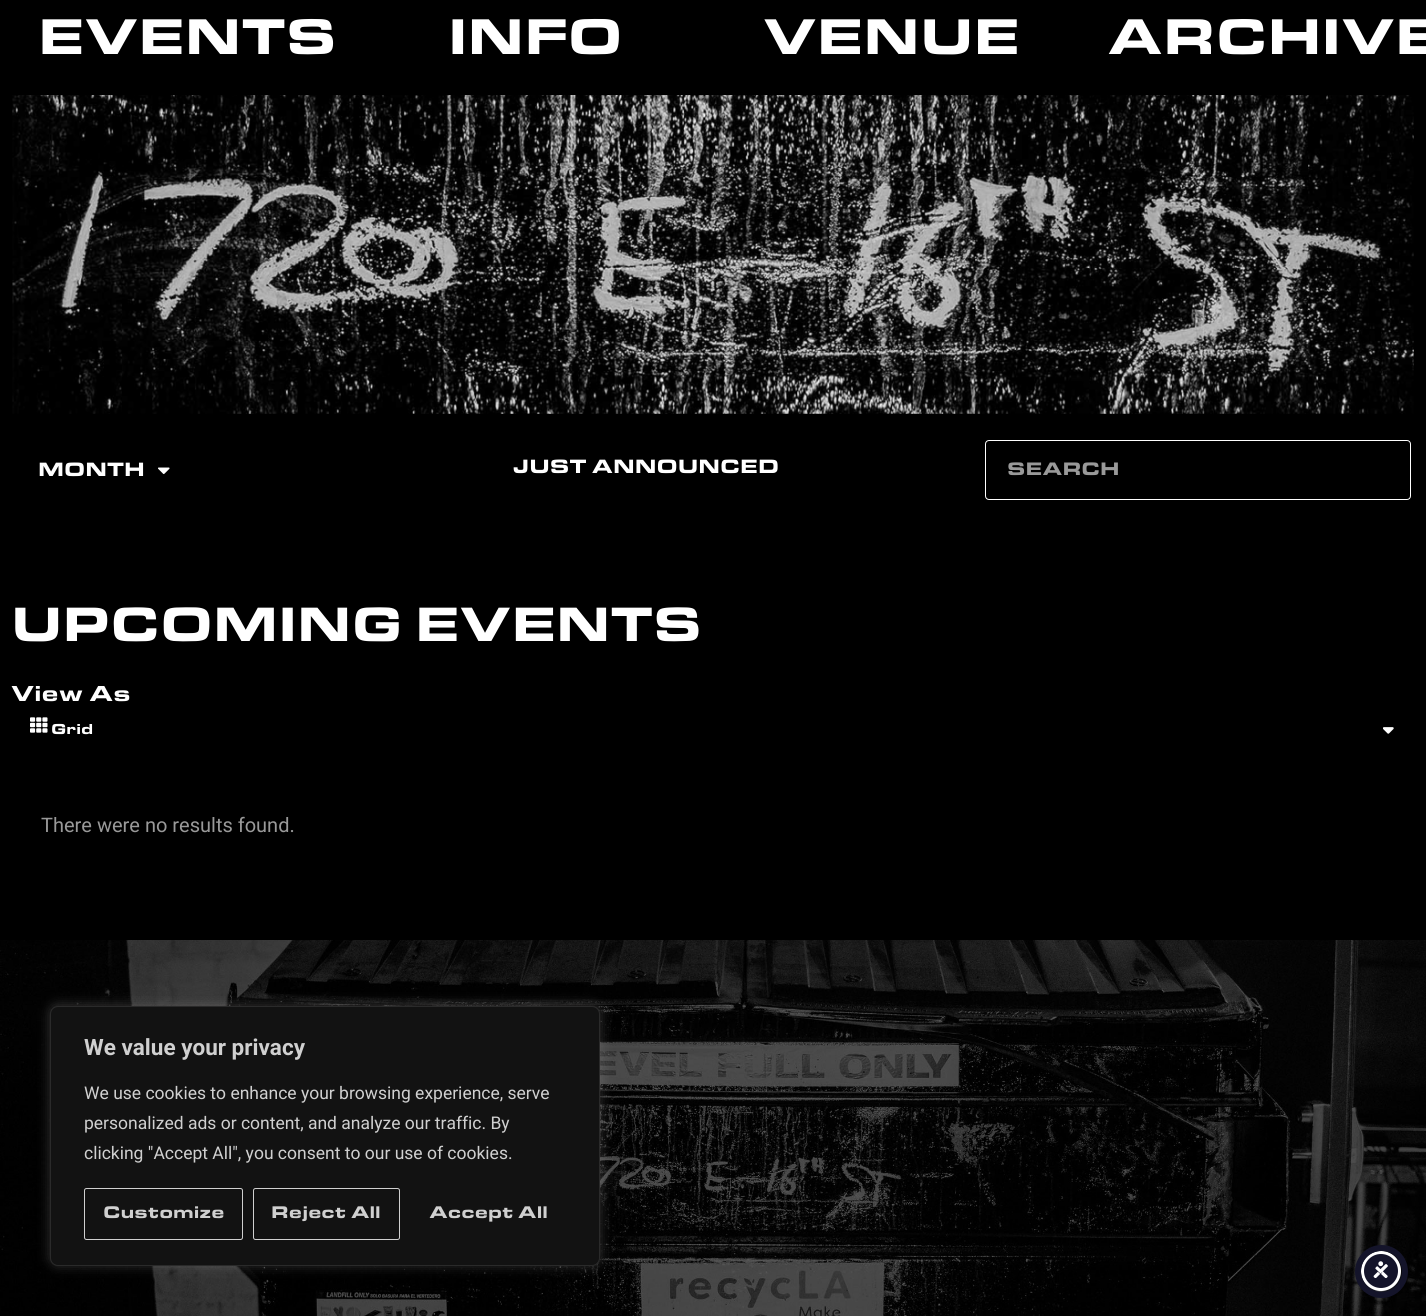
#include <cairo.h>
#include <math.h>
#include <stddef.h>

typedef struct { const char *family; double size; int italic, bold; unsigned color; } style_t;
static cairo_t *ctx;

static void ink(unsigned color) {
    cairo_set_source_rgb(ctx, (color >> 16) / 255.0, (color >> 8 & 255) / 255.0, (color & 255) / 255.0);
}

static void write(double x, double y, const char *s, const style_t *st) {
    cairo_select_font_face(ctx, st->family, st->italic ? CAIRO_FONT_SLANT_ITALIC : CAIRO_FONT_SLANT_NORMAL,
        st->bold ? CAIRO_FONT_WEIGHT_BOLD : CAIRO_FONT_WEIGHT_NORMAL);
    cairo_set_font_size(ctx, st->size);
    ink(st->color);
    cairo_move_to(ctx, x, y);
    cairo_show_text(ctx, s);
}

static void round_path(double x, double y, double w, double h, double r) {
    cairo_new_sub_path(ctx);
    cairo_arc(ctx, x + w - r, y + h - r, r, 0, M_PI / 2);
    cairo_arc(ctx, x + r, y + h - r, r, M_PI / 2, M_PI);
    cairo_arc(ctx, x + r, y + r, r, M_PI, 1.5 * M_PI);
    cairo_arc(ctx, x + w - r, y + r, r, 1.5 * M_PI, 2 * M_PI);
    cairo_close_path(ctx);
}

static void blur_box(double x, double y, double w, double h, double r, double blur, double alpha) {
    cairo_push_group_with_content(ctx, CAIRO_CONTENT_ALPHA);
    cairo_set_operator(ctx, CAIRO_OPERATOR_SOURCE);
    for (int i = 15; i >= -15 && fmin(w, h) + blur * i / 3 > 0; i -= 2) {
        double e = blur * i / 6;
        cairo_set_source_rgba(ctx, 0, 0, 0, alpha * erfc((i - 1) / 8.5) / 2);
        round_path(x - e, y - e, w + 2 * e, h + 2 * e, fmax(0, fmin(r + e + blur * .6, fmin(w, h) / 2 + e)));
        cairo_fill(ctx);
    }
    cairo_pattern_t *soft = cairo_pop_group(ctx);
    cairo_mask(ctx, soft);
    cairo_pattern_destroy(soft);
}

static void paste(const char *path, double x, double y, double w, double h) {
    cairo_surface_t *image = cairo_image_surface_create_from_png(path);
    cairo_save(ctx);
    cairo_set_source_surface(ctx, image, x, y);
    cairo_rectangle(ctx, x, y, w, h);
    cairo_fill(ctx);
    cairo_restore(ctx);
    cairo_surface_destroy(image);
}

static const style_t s1 = {"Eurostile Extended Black", 52, 0, 0, 0xffffff};
static const style_t s2 = {"Eurostile Extended Black", 20, 0, 0, 0xffffff};
static const style_t s3 = {"Eurostile Extended Black", 18.75, 0, 0, 0x999999};
static const style_t s4 = {"Eurostile Extended Black", 50, 0, 0, 0xffffff};
static const style_t s5 = {"Eurostile Extended Black", 22.5, 0, 0, 0xffffff};
static const style_t s6 = {"Eurostile Extended Black", 15, 0, 0, 0xffffff};
static const style_t s7 = {"Roboto", 20, 0, 0, 0x999999};
static const style_t s8 = {"Roboto", 22.5, 0, 1, 0xd0d0d0};
static const style_t s9 = {"Roboto", 17.5, 0, 0, 0xd0d0d0};
static const style_t s10 = {"Eurostile Extended Black", 17.5, 0, 0, 0xd0d0d0};

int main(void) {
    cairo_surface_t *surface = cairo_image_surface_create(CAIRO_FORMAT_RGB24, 1426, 1316);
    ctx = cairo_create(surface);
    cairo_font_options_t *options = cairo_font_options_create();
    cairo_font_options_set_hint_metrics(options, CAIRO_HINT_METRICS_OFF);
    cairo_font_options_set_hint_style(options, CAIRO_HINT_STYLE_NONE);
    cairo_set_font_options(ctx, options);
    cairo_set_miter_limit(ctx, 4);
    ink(0x000000);
    cairo_paint(ctx);
    write(38, 54, "EVENTS", &s1);
    write(448, 54, "INFO", &s1);
    write(763, 54, "VENUE", &s1);
    write(1107, 54, "ARCHIVE", &s1);
    paste("pic1.png", 12, 95, 1402, 319);
    write(38, 476, "MONTH", &s2);
    paste("pic2.png", 158, 467, 12, 8);
    write(513, 473, "JUST ANNOUNCED", &s2);
    round_path(985.5, 440.5, 425, 59, 3.5);
    cairo_set_line_width(ctx, 1);
    cairo_stroke(ctx);
    write(1007, 475, "SEARCH", &s3);
    write(11, 641, "UPCOMING EVENTS", &s4);
    write(11, 701, "View As", &s5);
    paste("pic3.png", 30, 717, 18, 16);
    write(51, 734, "Grid", &s6);
    paste("pic4.png", 1383, 727, 11, 7);
    write(41, 832, "There were no results found.", &s7);
    paste("pic5.png", 0, 940, 1426, 376);
    ink(0xacabab);
    blur_box(50, 1005, 550, 260, 8, 6, 0.3);
    ink(0x121212);
    round_path(50.5, 1006.5, 549, 259, 7.5);
    cairo_fill_preserve(ctx);
    ink(0x2a2a2a);
    cairo_stroke(ctx);
    write(84, 1055, "We value your privacy", &s8);
    write(84, 1099, "We use cookies to enhance your browsing experience, serve", &s9);
    write(84, 1129, "personalized ads or content, and analyze our traffic. By", &s9);
    write(84, 1159, "clicking \"Accept All\", you consent to our use of cookies.", &s9);
    round_path(84.5, 1188.5, 158, 51, 2);
    cairo_stroke(ctx);
    write(103, 1218, "Customize", &s10);
    round_path(253.5, 1188.5, 146, 51, 2);
    cairo_stroke(ctx);
    write(271, 1218, "Reject All", &s10);
    write(429, 1218, "Accept All", &s10);
    ink(0x5d6494);
    blur_box(1361, 1254, 40, 40, 20, 2.5, 0.2);
    ink(0x14142a);
    cairo_arc(ctx, 1381, 1271, 18.5, 0, 2 * M_PI);
    cairo_fill_preserve(ctx);
    ink(0xffffff);
    cairo_set_line_width(ctx, 3);
    cairo_stroke(ctx);
    cairo_arc(ctx, 1381.5, 1271.5, 23.5, 0, 2 * M_PI);
    ink(0x14142a);
    cairo_set_line_width(ctx, 6);
    cairo_stroke(ctx);
    paste("pic6.png", 1373, 1261, 15, 17);
    cairo_surface_write_to_png(surface, "screenshot.png");
    cairo_font_options_destroy(options);
    cairo_destroy(ctx);
    cairo_surface_destroy(surface);
    return 0;
}
